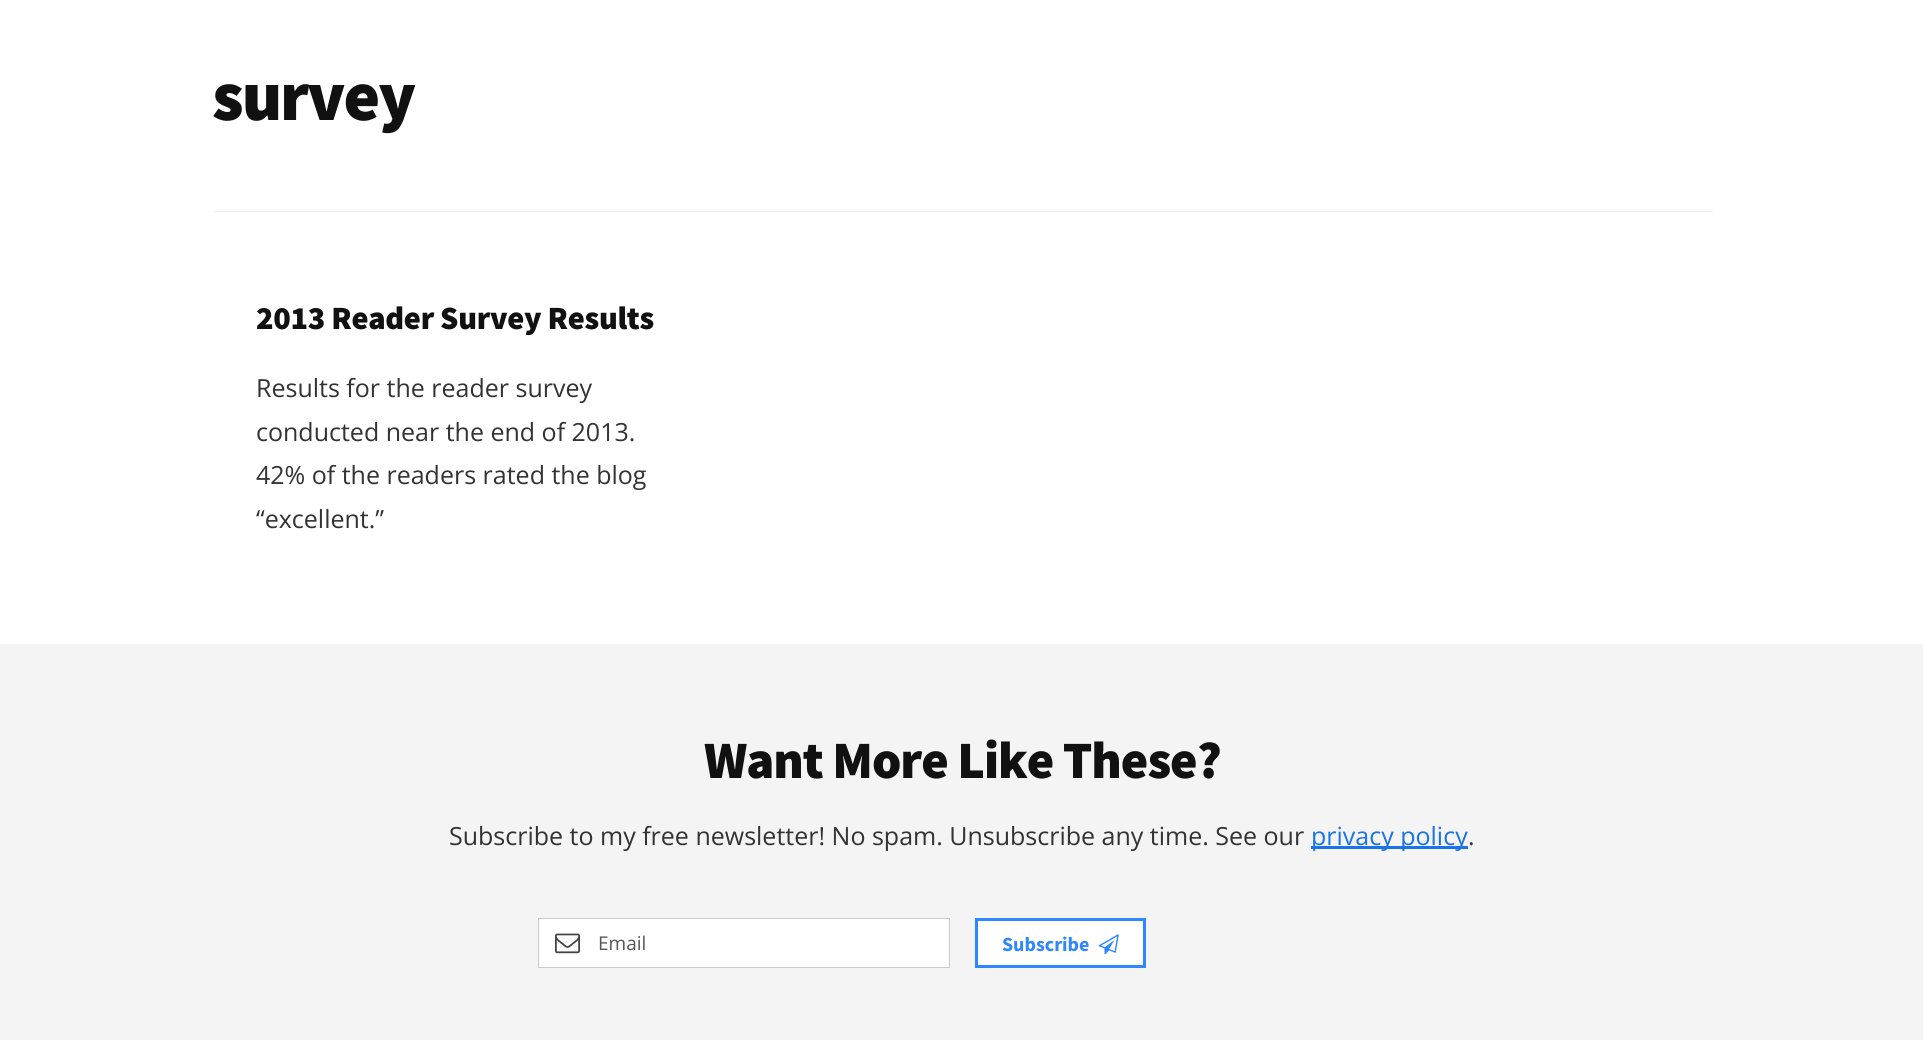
#include <cairo.h>
#include <math.h>
#include <stddef.h>

typedef struct { const char *family; double size; int italic, bold; unsigned color; } style_t;
static cairo_t *ctx;

static void ink(unsigned color) {
    cairo_set_source_rgb(ctx, (color >> 16) / 255.0, (color >> 8 & 255) / 255.0, (color & 255) / 255.0);
}

static void write(double x, double y, const char *s, const style_t *st) {
    cairo_select_font_face(ctx, st->family, st->italic ? CAIRO_FONT_SLANT_ITALIC : CAIRO_FONT_SLANT_NORMAL,
        st->bold ? CAIRO_FONT_WEIGHT_BOLD : CAIRO_FONT_WEIGHT_NORMAL);
    cairo_set_font_size(ctx, st->size);
    ink(st->color);
    cairo_move_to(ctx, x, y);
    cairo_show_text(ctx, s);
}

static void write_spaced(double x, double y, const char *s, double letter, double word) {
    cairo_move_to(ctx, x, y);
    while (*s) {
        char ch[5] = {0};
        int n = 0;
        do ch[n++] = *s++; while ((*s & 0xC0) == 0x80);
        cairo_show_text(ctx, ch);
        cairo_rel_move_to(ctx, letter + word * (*ch == ' '), 0);
    }
}

static void block(double x, double y, double w, double h, unsigned color) {
    ink(color);
    cairo_rectangle(ctx, x, y, w, h);
    cairo_fill(ctx);
}

static void paste(const char *path, double x, double y, double w, double h) {
    cairo_surface_t *image = cairo_image_surface_create_from_png(path);
    cairo_save(ctx);
    cairo_set_source_surface(ctx, image, x, y);
    cairo_rectangle(ctx, x, y, w, h);
    cairo_fill(ctx);
    cairo_restore(ctx);
    cairo_surface_destroy(image);
}

static const style_t s1 = {"Open Sans", 25, 0, 0, 0x333333};
static const style_t s2 = {"Open Sans", 25, 0, 0, 0x1a73e8};
static const style_t s3 = {"Open Sans", 19, 0, 0, 0x575757};
static const style_t s4 = {"Source Sans Pro", 20, 0, 1, 0x2e87fc};

int main(void) {
    cairo_surface_t *surface = cairo_image_surface_create(CAIRO_FORMAT_RGB24, 1923, 1040);
    ctx = cairo_create(surface);
    cairo_font_options_t *options = cairo_font_options_create();
    cairo_font_options_set_hint_metrics(options, CAIRO_HINT_METRICS_OFF);
    cairo_font_options_set_hint_style(options, CAIRO_HINT_STYLE_NONE);
    cairo_set_font_options(ctx, options);
    cairo_set_miter_limit(ctx, 4);
    ink(0xffffff);
    cairo_paint(ctx);
    block(213, 211, 1500, 1, 0xeeeeee);
    cairo_select_font_face(ctx, "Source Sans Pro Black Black", CAIRO_FONT_SLANT_NORMAL, CAIRO_FONT_WEIGHT_NORMAL);
    cairo_set_font_size(ctx, 70);
    ink(0x111111);
    write_spaced(212, 120, "survey", -2, 0);
    cairo_set_font_size(ctx, 32.5);
    write_spaced(256, 329, "2013 Reader Survey Results", -0.3, 0);
    write(256, 397, "Results for the reader survey", &s1);
    write(256, 441, "conducted near the end of 2013.", &s1);
    write(256, 484, "42% of the readers rated the blog", &s1);
    write(256, 528, "“excellent.”", &s1);
    block(0, 644, 1923, 396, 0xf4f4f4);
    cairo_select_font_face(ctx, "Source Sans Pro Black Black", CAIRO_FONT_SLANT_NORMAL, CAIRO_FONT_WEIGHT_NORMAL);
    cairo_set_font_size(ctx, 52.5);
    ink(0x111111);
    write_spaced(704, 778, "Want More Like These?", -1.05, 0);
    write(449, 845, "Subscribe to my free newsletter! No spam. Unsubscribe any time. See our", &s1);
    block(1311, 846, 157, 3, 0x1a73e8);
    write(1311, 845, "privacy policy", &s2);
    write(1468, 845, ".", &s1);
    ink(0xffffff);
    cairo_rectangle(ctx, 538.5, 918.5, 411, 49);
    cairo_fill_preserve(ctx);
    ink(0xcccccc);
    cairo_set_line_width(ctx, 1);
    cairo_stroke(ctx);
    paste("pic1.png", 555, 933, 25, 21);
    write(598, 950, "Email", &s3);
    ink(0xffffff);
    cairo_rectangle(ctx, 976.5, 919.5, 168, 47);
    cairo_fill_preserve(ctx);
    ink(0x2e87fc);
    cairo_set_line_width(ctx, 3);
    cairo_stroke(ctx);
    write(1002, 951, "Subscribe", &s4);
    paste("pic2.png", 1098, 934, 21, 21);
    cairo_surface_write_to_png(surface, "screenshot.png");
    cairo_font_options_destroy(options);
    cairo_destroy(ctx);
    cairo_surface_destroy(surface);
    return 0;
}
